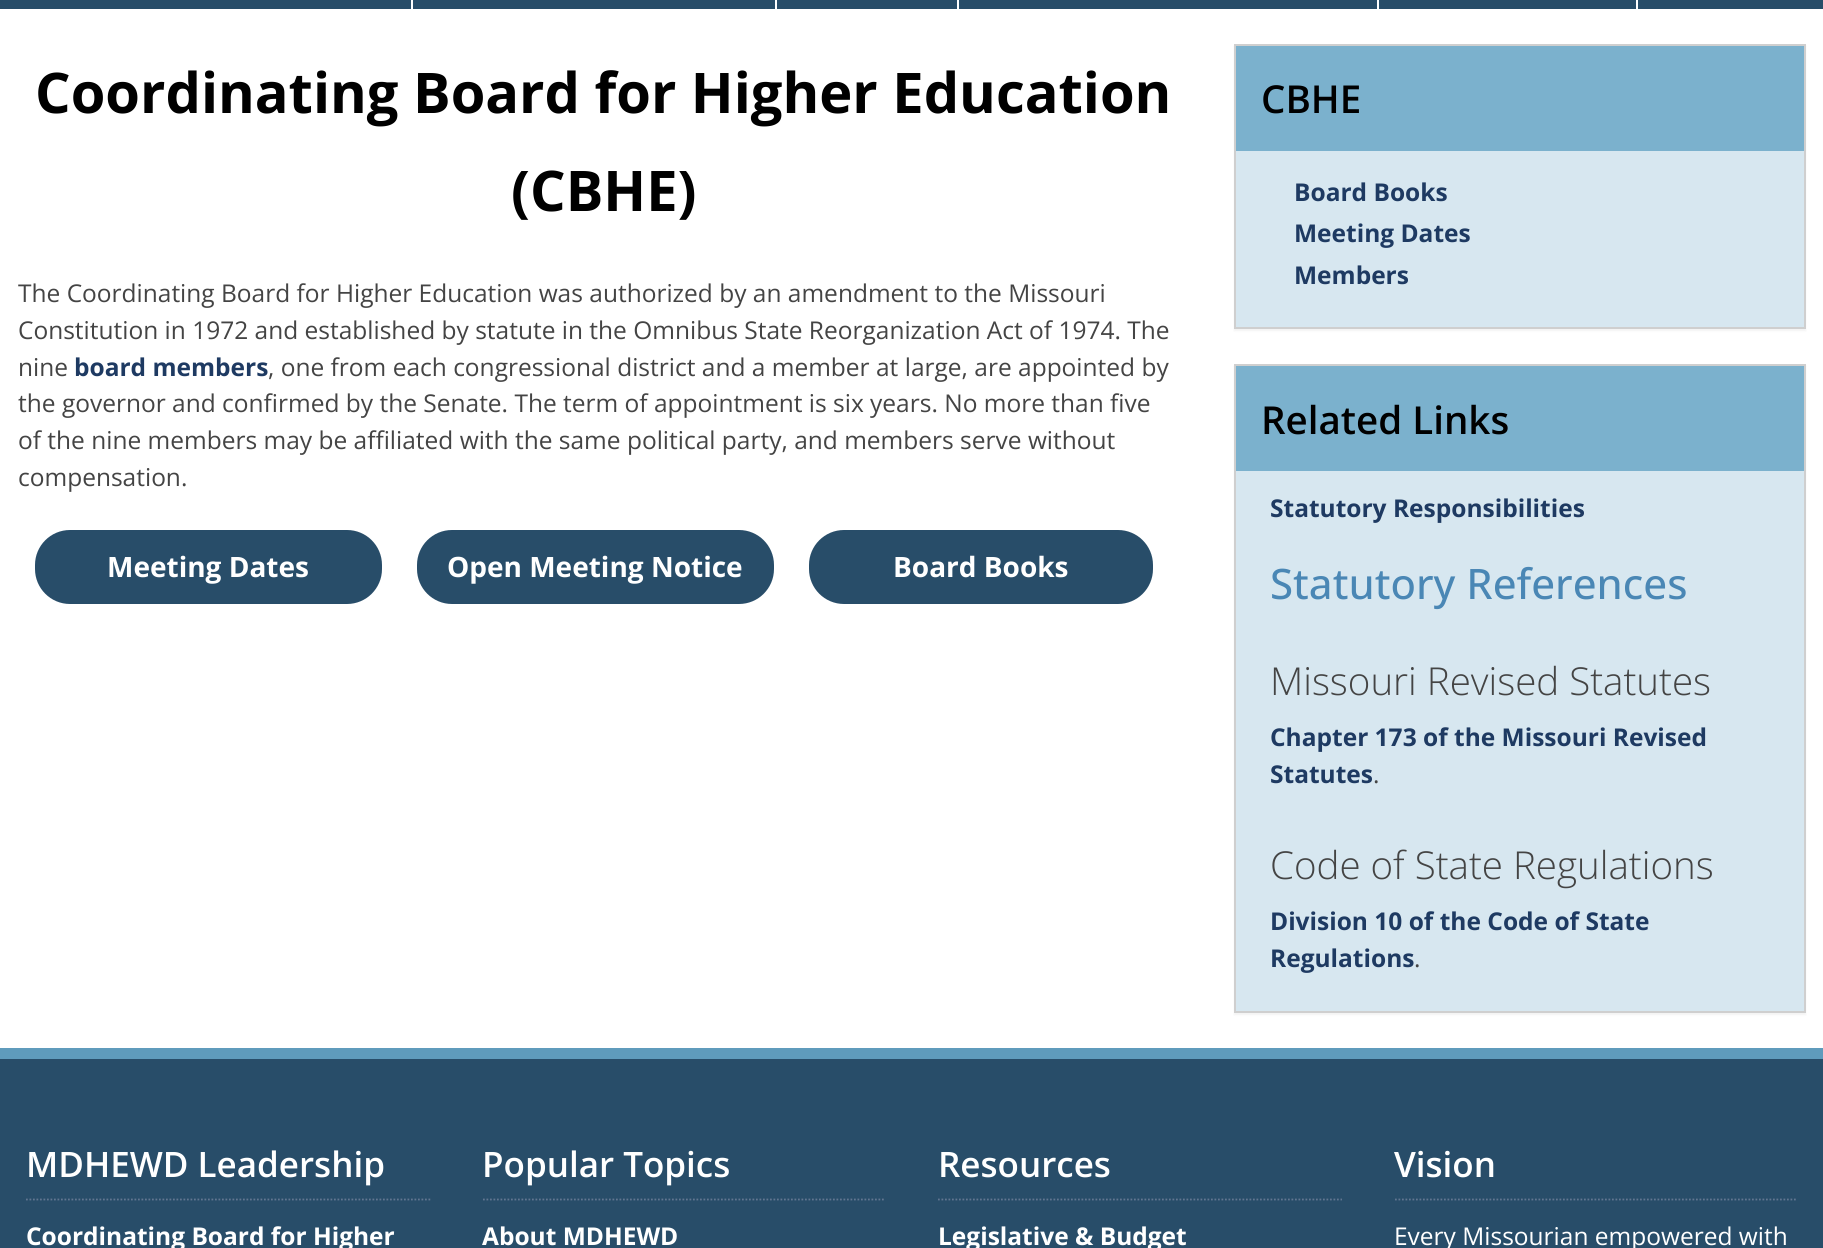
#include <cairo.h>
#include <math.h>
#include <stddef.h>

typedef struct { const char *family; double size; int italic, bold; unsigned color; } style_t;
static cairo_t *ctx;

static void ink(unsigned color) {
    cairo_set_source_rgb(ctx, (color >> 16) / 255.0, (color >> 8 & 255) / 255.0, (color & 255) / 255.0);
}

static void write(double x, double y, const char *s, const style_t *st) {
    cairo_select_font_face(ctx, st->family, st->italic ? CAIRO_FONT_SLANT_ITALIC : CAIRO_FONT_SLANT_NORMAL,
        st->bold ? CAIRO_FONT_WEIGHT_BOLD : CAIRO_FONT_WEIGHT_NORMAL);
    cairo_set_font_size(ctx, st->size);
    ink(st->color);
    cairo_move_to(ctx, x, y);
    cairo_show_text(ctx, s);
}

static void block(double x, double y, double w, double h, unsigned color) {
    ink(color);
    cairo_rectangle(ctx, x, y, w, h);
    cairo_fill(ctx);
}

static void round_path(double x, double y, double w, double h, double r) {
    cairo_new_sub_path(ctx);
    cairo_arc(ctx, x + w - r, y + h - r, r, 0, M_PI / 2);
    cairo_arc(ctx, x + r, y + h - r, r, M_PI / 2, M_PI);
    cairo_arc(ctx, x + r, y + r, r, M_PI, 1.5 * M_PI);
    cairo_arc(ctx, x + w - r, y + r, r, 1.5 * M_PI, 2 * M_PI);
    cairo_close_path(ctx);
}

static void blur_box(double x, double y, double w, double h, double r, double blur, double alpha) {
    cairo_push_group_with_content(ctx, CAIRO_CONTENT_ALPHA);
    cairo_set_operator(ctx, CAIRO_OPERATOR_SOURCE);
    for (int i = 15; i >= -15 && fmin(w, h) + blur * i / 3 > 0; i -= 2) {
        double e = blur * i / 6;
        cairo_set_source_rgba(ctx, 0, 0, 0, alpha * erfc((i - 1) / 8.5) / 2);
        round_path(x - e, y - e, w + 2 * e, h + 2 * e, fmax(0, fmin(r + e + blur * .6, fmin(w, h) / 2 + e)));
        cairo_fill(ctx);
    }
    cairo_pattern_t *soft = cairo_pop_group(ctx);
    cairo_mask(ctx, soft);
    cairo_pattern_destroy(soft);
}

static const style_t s1 = {"Open Sans", 56, 0, 1, 0x000000};
static const style_t s2 = {"Open Sans", 24.5, 0, 0, 0x444444};
static const style_t s3 = {"Open Sans", 24.5, 0, 1, 0x1e3a62};
static const style_t s4 = {"Open Sans", 28, 0, 1, 0xffffff};
static const style_t s5 = {"Open Sans SemiBold", 38.5, 0, 0, 0x000000};
static const style_t s6 = {"Open Sans Medium", 42, 0, 0, 0x4a87b5};
static const style_t s7 = {"Open Sans Light", 38.5, 0, 0, 0x444444};
static const style_t s8 = {"Open Sans SemiBold", 35, 0, 0, 0xffffff};
static const style_t s9 = {"Open Sans", 24.5, 0, 1, 0xffffff};
static const style_t s10 = {"Open Sans", 24.5, 0, 0, 0xffffff};

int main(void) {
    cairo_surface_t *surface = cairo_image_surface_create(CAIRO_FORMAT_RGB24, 1823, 1248);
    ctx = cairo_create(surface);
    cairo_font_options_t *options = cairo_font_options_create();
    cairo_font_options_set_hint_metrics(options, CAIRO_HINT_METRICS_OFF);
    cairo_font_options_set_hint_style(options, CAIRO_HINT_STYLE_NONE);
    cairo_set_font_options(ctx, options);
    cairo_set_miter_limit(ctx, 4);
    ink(0xffffff);
    cairo_paint(ctx);
    block(0, 0, 1823, 9, 0x284d69);
    block(411, 0, 2, 9, 0xffffff);
    block(775, 0, 2, 9, 0xffffff);
    block(957, 0, 2, 9, 0xffffff);
    block(1377, 0, 2, 9, 0xffffff);
    block(1636, 0, 2, 9, 0xffffff);
    write(35, 113, "Coordinating Board for Higher Education", &s1);
    write(511, 211, "(CBHE)", &s1);
    write(18, 302, "The Coordinating Board for Higher Education was authorized by an amendment to the Missouri", &s2);
    write(18, 339, "Constitution in 1972 and established by statute in the Omnibus State Reorganization Act of 1974. The", &s2);
    write(18, 376, "nine", &s2);
    write(74, 376, "board members", &s3);
    write(268, 376, ", one from each congressional district and a member at large, are appointed by", &s2);
    write(18, 412, "the governor and confirmed by the Senate. The term of appointment is six years. No more than five", &s2);
    write(18, 449, "of the nine members may be affiliated with the same political party, and members serve without", &s2);
    write(18, 486, "compensation.", &s2);
    ink(0x284d69);
    round_path(35, 530, 347, 74, 35);
    cairo_fill(ctx);
    write(107, 577, "Meeting Dates", &s4);
    ink(0x284d69);
    round_path(417, 530, 357, 74, 35);
    cairo_fill(ctx);
    write(447, 577, "Open Meeting Notice", &s4);
    ink(0x284d69);
    round_path(809, 530, 344, 74, 35);
    cairo_fill(ctx);
    write(893, 577, "Board Books", &s4);
    ink(0x000000);
    blur_box(1234, 46, 572, 285, 0, 1, 0.05);
    block(1236, 151, 568, 176, 0xd7e7f0);
    cairo_rectangle(ctx, 1235, 45, 570, 283);
    ink(0xcfcfcf);
    cairo_stroke(ctx);
    block(1236, 46, 568, 105, 0x7bb1cd);
    write(1261, 113, "CBHE", &s5);
    write(1294, 201, "Board Books", &s3);
    write(1294, 242, "Meeting Dates", &s3);
    write(1294, 284, "Members", &s3);
    ink(0x000000);
    blur_box(1234, 366, 572, 649, 0, 1, 0.05);
    block(1236, 471, 568, 540, 0xd7e7f0);
    cairo_rectangle(ctx, 1235, 365, 570, 647);
    ink(0xcfcfcf);
    cairo_stroke(ctx);
    block(1236, 366, 568, 105, 0x7bb1cd);
    write(1261, 434, "Related Links", &s5);
    write(1270, 517, "Statutory Responsibilities", &s3);
    write(1270, 599, "Statutory References", &s6);
    write(1270, 695, "Missouri Revised Statutes", &s7);
    write(1270, 746, "Chapter 173 of the Missouri Revised", &s3);
    write(1270, 783, "Statutes", &s3);
    write(1373, 783, ".", &s2);
    write(1270, 879, "Code of State Regulations", &s7);
    write(1270, 930, "Division 10 of the Code of State", &s3);
    write(1270, 967, "Regulations", &s3);
    write(1414, 967, ".", &s2);
    block(0, 1059, 1823, 189, 0x284d69);
    block(0, 1048, 1823, 11, 0x5f9bbc);
    cairo_new_path(ctx);
    cairo_move_to(ctx, 26, 1199.5);
    cairo_line_to(ctx, 430.5, 1199.5);
    ink(0x627691);
    cairo_set_line_width(ctx, 1.8);
    cairo_set_dash(ctx, (double[]){1.75, 1.75}, 2, 0);
    cairo_stroke(ctx);
    write(26, 1177, "MDHEWD Leadership", &s8);
    write(26, 1245, "Coordinating Board for Higher", &s9);
    cairo_new_path(ctx);
    cairo_move_to(ctx, 483, 1199.5);
    cairo_line_to(ctx, 885.5, 1199.5);
    ink(0x627691);
    cairo_stroke(ctx);
    write(482, 1177, "Popular Topics", &s8);
    write(482, 1245, "About MDHEWD", &s9);
    cairo_new_path(ctx);
    cairo_move_to(ctx, 938, 1199.5);
    cairo_line_to(ctx, 1342, 1199.5);
    ink(0x627691);
    cairo_stroke(ctx);
    write(938, 1177, "Resources", &s8);
    write(938, 1245, "Legislative & Budget", &s9);
    cairo_new_path(ctx);
    cairo_move_to(ctx, 1395, 1199.5);
    cairo_line_to(ctx, 1797, 1199.5);
    ink(0x627691);
    cairo_stroke(ctx);
    write(1394, 1177, "Vision", &s8);
    write(1394, 1245, "Every Missourian empowered with", &s10);
    cairo_surface_write_to_png(surface, "screenshot.png");
    cairo_font_options_destroy(options);
    cairo_destroy(ctx);
    cairo_surface_destroy(surface);
    return 0;
}
